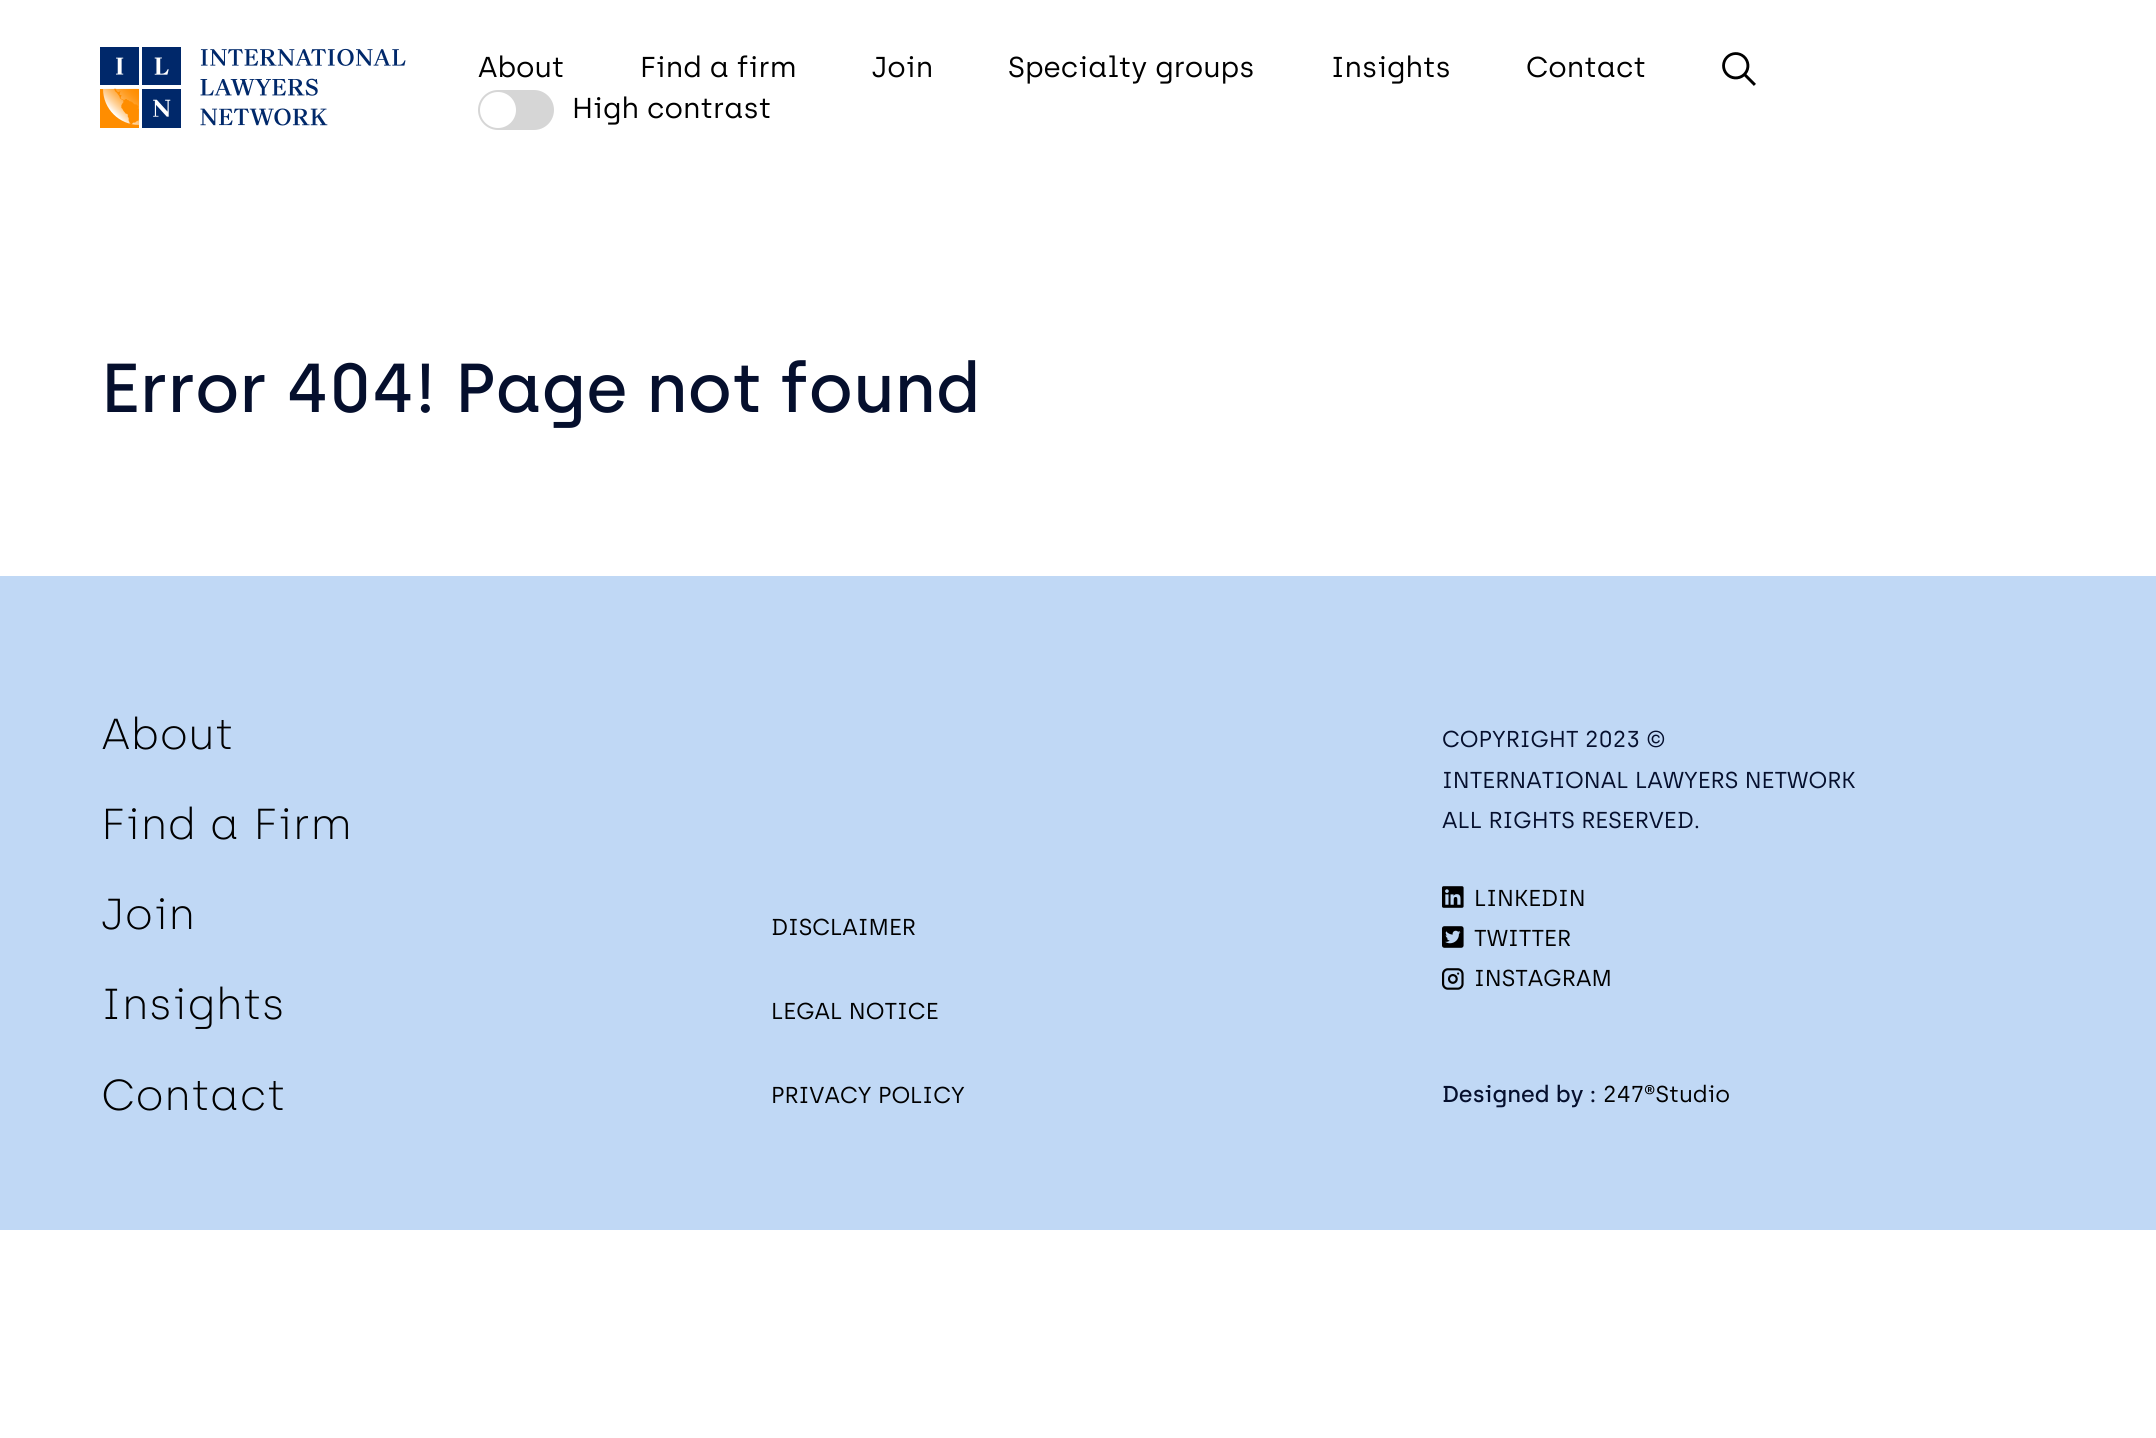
#include <cairo.h>
#include <math.h>
#include <stddef.h>

typedef struct { const char *family; double size; int italic, bold; unsigned color; } style_t;
static cairo_t *ctx;

static void ink(unsigned color) {
    cairo_set_source_rgb(ctx, (color >> 16) / 255.0, (color >> 8 & 255) / 255.0, (color & 255) / 255.0);
}

static void write(double x, double y, const char *s, const style_t *st) {
    cairo_select_font_face(ctx, st->family, st->italic ? CAIRO_FONT_SLANT_ITALIC : CAIRO_FONT_SLANT_NORMAL,
        st->bold ? CAIRO_FONT_WEIGHT_BOLD : CAIRO_FONT_WEIGHT_NORMAL);
    cairo_set_font_size(ctx, st->size);
    ink(st->color);
    cairo_move_to(ctx, x, y);
    cairo_show_text(ctx, s);
}

static void block(double x, double y, double w, double h, unsigned color) {
    ink(color);
    cairo_rectangle(ctx, x, y, w, h);
    cairo_fill(ctx);
}

static void round_path(double x, double y, double w, double h, double r) {
    cairo_new_sub_path(ctx);
    cairo_arc(ctx, x + w - r, y + h - r, r, 0, M_PI / 2);
    cairo_arc(ctx, x + r, y + h - r, r, M_PI / 2, M_PI);
    cairo_arc(ctx, x + r, y + r, r, M_PI, 1.5 * M_PI);
    cairo_arc(ctx, x + w - r, y + r, r, 1.5 * M_PI, 2 * M_PI);
    cairo_close_path(ctx);
}

static void paste(const char *path, double x, double y, double w, double h) {
    cairo_surface_t *image = cairo_image_surface_create_from_png(path);
    cairo_save(ctx);
    cairo_set_source_surface(ctx, image, x, y);
    cairo_rectangle(ctx, x, y, w, h);
    cairo_fill(ctx);
    cairo_restore(ctx);
    cairo_surface_destroy(image);
}

static const style_t s1 = {"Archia", 28.75, 0, 0, 0x000000};
static const style_t s2 = {"Archia Medium", 69.1, 0, 0, 0x050f2d};
static const style_t s3 = {"Archia Thin", 43.25, 0, 0, 0x000000};
static const style_t s4 = {"Archia", 23, 0, 0, 0x000000};
static const style_t s5 = {"Archia", 23, 0, 0, 0x050f2d};
static const style_t s6 = {"Archia Medium", 23, 0, 0, 0x050f2d};

int main(void) {
    cairo_surface_t *surface = cairo_image_surface_create(CAIRO_FORMAT_RGB24, 2156, 1438);
    ctx = cairo_create(surface);
    cairo_font_options_t *options = cairo_font_options_create();
    cairo_font_options_set_hint_metrics(options, CAIRO_HINT_METRICS_OFF);
    cairo_font_options_set_hint_style(options, CAIRO_HINT_STYLE_NONE);
    cairo_set_font_options(ctx, options);
    cairo_set_miter_limit(ctx, 4);
    ink(0xffffff);
    cairo_paint(ctx);
    paste("pic1.png", 100, 47, 306, 81);
    write(478, 77, "About", &s1);
    write(640, 77, "Find a firm", &s1);
    write(872, 77, "Join", &s1);
    write(1008, 77, "Specialty groups", &s1);
    write(1331, 77, "Insights", &s1);
    write(1526, 77, "Contact", &s1);
    paste("pic2.png", 1722, 52, 34, 34);
    ink(0xd6d6d6);
    round_path(478, 90, 76, 40, 20);
    cairo_fill(ctx);
    ink(0xffffff);
    cairo_arc(ctx, 498, 110, 18, 0, 2 * M_PI);
    cairo_fill(ctx);
    write(572, 118, "High contrast", &s1);
    write(101, 412, "Error 404! Page not found", &s2);
    block(0, 576, 2156, 654, 0xc0d8f5);
    write(101, 749, "About", &s3);
    write(101, 839, "Find a Firm", &s3);
    write(101, 929, "Join", &s3);
    write(101, 1019, "Insights", &s3);
    write(101, 1110, "Contact", &s3);
    write(771, 935, "DISCLAIMER", &s4);
    write(771, 1019, "LEGAL NOTICE", &s4);
    write(771, 1103, "PRIVACY POLICY", &s4);
    write(1442, 747, "COPYRIGHT 2023 ©", &s5);
    write(1442, 788, "INTERNATIONAL LAWYERS NETWORK", &s5);
    write(1442, 828, "ALL RIGHTS RESERVED.", &s5);
    paste("pic3.png", 1442, 886, 22, 22);
    write(1474, 906, "LINKEDIN", &s4);
    paste("pic4.png", 1442, 926, 22, 22);
    write(1474, 946, "TWITTER", &s4);
    paste("pic5.png", 1442, 968, 22, 22);
    write(1474, 986, "INSTAGRAM", &s4);
    write(1442, 1102, "Designed by :", &s6);
    write(1603, 1102, "247®Studio", &s4);
    cairo_surface_write_to_png(surface, "screenshot.png");
    cairo_font_options_destroy(options);
    cairo_destroy(ctx);
    cairo_surface_destroy(surface);
    return 0;
}
